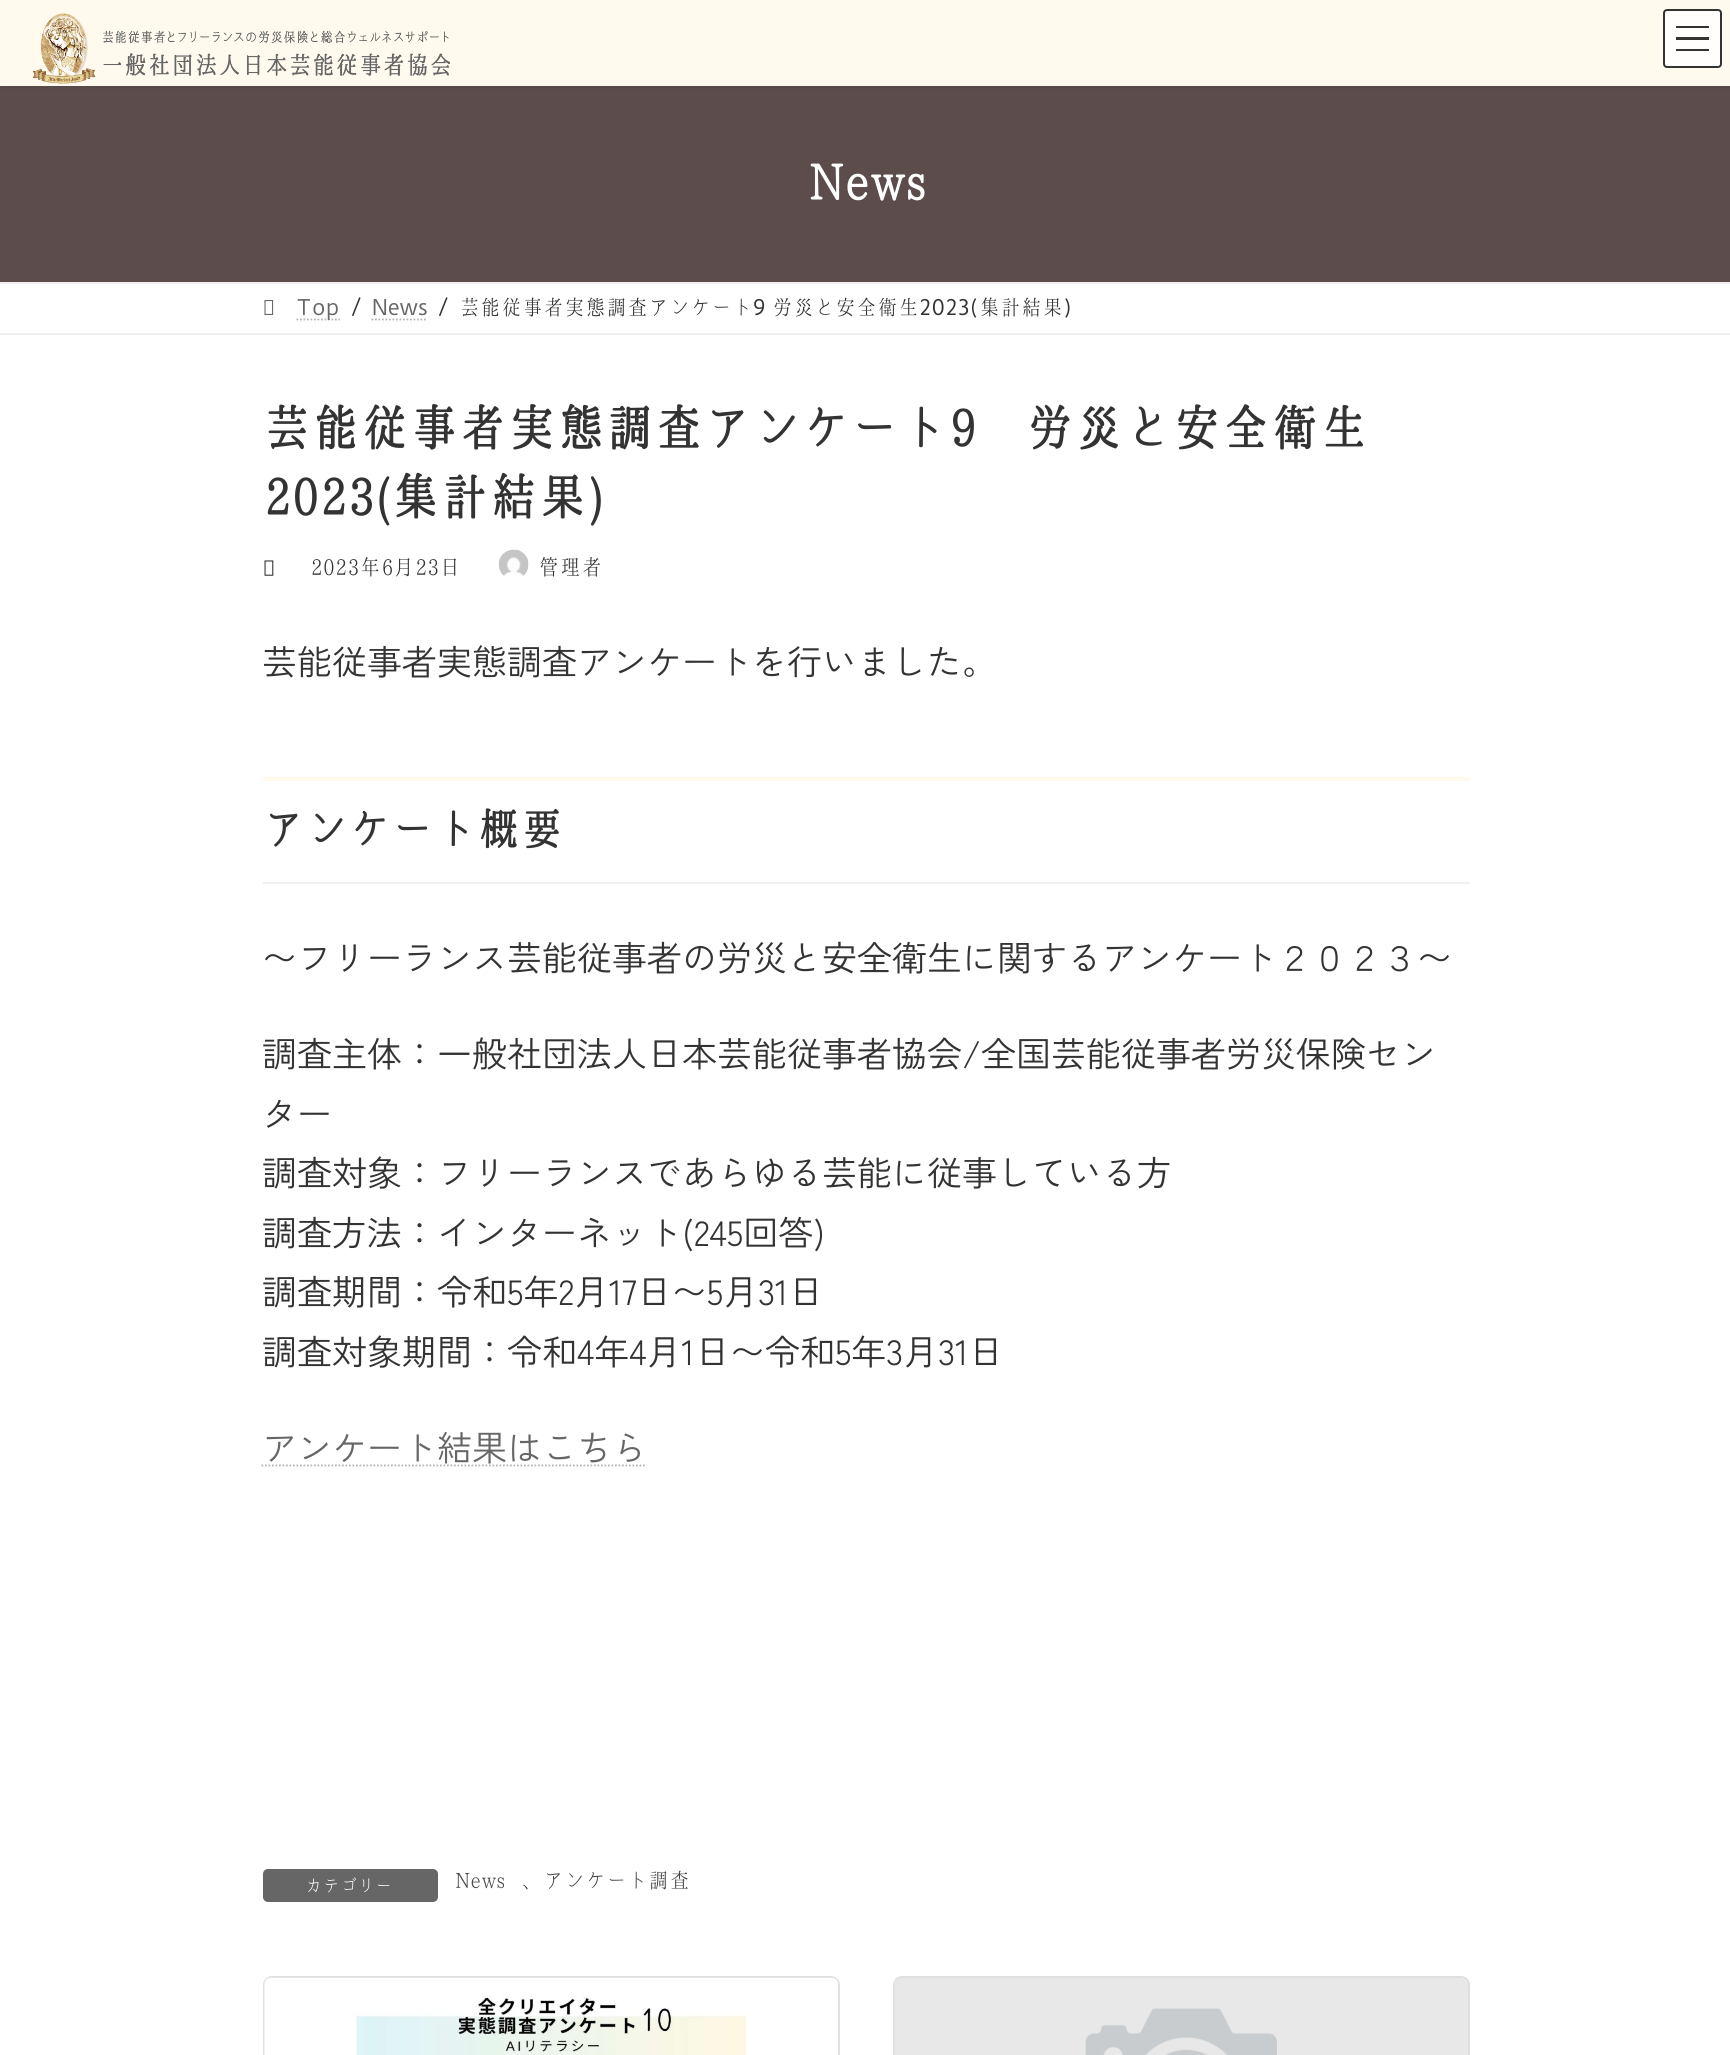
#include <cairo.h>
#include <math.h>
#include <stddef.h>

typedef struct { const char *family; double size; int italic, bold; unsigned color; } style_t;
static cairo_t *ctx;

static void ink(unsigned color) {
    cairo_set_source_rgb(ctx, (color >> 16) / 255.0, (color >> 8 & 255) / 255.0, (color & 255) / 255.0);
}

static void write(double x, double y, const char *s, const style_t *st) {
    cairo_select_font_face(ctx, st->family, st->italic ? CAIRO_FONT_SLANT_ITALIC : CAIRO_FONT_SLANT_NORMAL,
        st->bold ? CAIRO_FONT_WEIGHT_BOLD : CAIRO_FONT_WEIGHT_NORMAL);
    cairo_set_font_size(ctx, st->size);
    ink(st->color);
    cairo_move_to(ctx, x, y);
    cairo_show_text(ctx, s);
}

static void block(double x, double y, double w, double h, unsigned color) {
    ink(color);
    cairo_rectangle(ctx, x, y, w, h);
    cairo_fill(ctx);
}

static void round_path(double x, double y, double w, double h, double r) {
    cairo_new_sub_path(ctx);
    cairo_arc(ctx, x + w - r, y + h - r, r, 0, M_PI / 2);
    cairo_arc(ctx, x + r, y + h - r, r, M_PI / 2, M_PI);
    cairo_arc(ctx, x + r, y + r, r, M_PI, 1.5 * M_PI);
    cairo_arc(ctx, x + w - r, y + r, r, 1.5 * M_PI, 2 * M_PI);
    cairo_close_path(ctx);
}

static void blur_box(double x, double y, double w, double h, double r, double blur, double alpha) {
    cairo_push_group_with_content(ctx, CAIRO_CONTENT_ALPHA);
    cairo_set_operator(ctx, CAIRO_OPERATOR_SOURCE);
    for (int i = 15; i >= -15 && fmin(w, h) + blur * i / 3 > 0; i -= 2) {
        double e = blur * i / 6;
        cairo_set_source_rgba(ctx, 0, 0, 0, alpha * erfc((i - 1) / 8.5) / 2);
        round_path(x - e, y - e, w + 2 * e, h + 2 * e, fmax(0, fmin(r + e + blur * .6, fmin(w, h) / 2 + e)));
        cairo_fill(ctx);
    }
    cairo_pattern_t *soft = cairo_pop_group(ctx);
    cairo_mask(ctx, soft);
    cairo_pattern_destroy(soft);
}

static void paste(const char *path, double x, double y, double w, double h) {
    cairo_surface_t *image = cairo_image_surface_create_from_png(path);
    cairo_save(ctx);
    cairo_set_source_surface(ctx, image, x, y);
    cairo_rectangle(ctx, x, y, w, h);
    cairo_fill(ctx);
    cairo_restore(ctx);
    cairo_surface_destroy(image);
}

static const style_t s1 = {"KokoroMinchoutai", 49, 0, 1, 0xffffff};
static const style_t s2 = {"Duru Sans", 21, 0, 0, 0x666666};
static const style_t s3 = {"Duru Sans", 21, 0, 0, 0x333333};
static const style_t s4 = {"KokoroMinchoutai", 21, 0, 0, 0x333333};
static const style_t s5 = {"KokoroMinchoutai", 49, 0, 1, 0x333333};
static const style_t s6 = {"KokoroMinchoutai", 21.5, 0, 0, 0x333333};
static const style_t s7 = {"Zen Kaku Gothic New", 35, 0, 0, 0x333333};
static const style_t s8 = {"KokoroMinchoutai", 43, 0, 1, 0x333333};
static const style_t s9 = {"Zen Kaku Gothic New", 35, 0, 0, 0x666666};
static const style_t s10 = {"KokoroMinchoutai", 17.5, 0, 0, 0xffffff};
static const style_t s11 = {"KokoroMinchoutai", 21, 0, 0, 0x464646};

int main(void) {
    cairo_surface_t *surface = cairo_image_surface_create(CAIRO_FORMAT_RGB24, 1730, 2055);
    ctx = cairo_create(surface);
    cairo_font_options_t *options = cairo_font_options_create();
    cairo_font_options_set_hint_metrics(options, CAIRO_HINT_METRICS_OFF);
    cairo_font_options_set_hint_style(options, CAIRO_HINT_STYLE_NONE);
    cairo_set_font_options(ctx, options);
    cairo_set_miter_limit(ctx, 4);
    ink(0xffffff);
    cairo_paint(ctx);
    block(0, 86, 1730, 196, 0x5c4c4c);
    ink(0x000000);
    blur_box(0, 2, 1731, 86, 0, 2.5, 0.05);
    block(0, 0, 1730, 86, 0xfff9ee);
    paste("pic1.png", 32, 13, 418, 71);
    ink(0xfffefc);
    round_path(1663, 9, 59, 59, 4);
    cairo_fill(ctx);
    block(1676, 26, 33, 2, 0x333332);
    block(1676, 37, 33, 3, 0x333332);
    block(1676, 49, 33, 2, 0x333332);
    round_path(1664, 10, 57, 57, 3);
    ink(0x333333);
    cairo_stroke(ctx);
    write(806, 200, "News", &s1);
    block(0, 282, 1730, 2, 0xf0f0f0);
    block(0, 333, 1730, 2, 0xf0f0f0);
    paste("pic2.png", 264, 300, 10, 15);
    cairo_new_path(ctx);
    cairo_move_to(ctx, 296.5, 319.5);
    cairo_line_to(ctx, 340, 319.5);
    ink(0xb3b3b3);
    cairo_set_line_width(ctx, 1.8);
    cairo_set_dash(ctx, (double[]){1.75, 1.75}, 2, 0);
    cairo_stroke(ctx);
    write(296, 315, "Top", &s2);
    write(351, 315, "/", &s3);
    write(372, 315, "News", &s2);
    cairo_new_path(ctx);
    cairo_move_to(ctx, 371.5, 319.5);
    cairo_line_to(ctx, 427.5, 319.5);
    ink(0xb3b3b3);
    cairo_stroke(ctx);
    write(438, 315, "/", &s3);
    write(459, 315, "芸能従事者実態調査アンケート", &s4);
    write(753, 315, "9", &s3);
    write(772, 315, "労災と安全衛生", &s4);
    write(919, 315, "2023(", &s3);
    write(979, 315, "集計結果", &s4);
    write(1063, 315, ")", &s3);
    write(262, 446, "芸能従事者実態調査アンケート9 労災と安全衛生", &s5);
    write(262, 515, "2023(集計結果)", &s5);
    paste("pic3.png", 264, 560, 10, 16);
    write(310, 575, "2023年6月23日", &s6);
    paste("pic4.png", 499, 549, 30, 27);
    write(538, 575, "管理者", &s6);
    write(262, 675, "芸能従事者実態調査アンケートを行いました。", &s7);
    block(263, 777, 1207, 4, 0xfff9ee);
    block(263, 882, 1207, 2, 0xf0f0f0);
    write(262, 845, "アンケート概要", &s8);
    write(262, 971, "〜フリーランス芸能従事者の労災と安全衛生に関するアンケート２０２３〜", &s7);
    write(262, 1067, "調査主体：一般社団法人日本芸能従事者協会/全国芸能従事者労災保険セン", &s7);
    write(262, 1127, "ター", &s7);
    write(262, 1186, "調査対象：フリーランスであらゆる芸能に従事している方", &s7);
    write(262, 1246, "調査方法：インターネット(245回答)", &s7);
    write(262, 1305, "調査期間：令和5年2月17日〜5月31日", &s7);
    write(262, 1365, "調査対象期間：令和4年4月1日〜令和5年3月31日", &s7);
    write(262, 1461, "アンケート結果はこちら", &s9);
    cairo_new_path(ctx);
    cairo_move_to(ctx, 261.5, 1465.5);
    cairo_line_to(ctx, 646.5, 1465.5);
    ink(0xb3b3b3);
    cairo_stroke(ctx);
    ink(0x666666);
    round_path(263, 1869, 175, 33, 5);
    cairo_fill(ctx);
    write(305, 1892, "カテゴリー", &s10);
    write(454, 1888, "News", &s11);
    write(522, 1888, "、", &s4);
    write(543, 1888, "アンケート調査", &s11);
    round_path(264, 1977, 575, 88, 8);
    ink(0xdfdfdf);
    cairo_set_line_width(ctx, 2);
    cairo_set_dash(ctx, NULL, 0, 0);
    cairo_stroke(ctx);
    paste("pic5.png", 264, 1977, 574, 78);
    round_path(894, 1977, 575, 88, 8);
    cairo_stroke(ctx);
    paste("pic6.png", 894, 1978, 574, 77);
    cairo_surface_write_to_png(surface, "screenshot.png");
    cairo_font_options_destroy(options);
    cairo_destroy(ctx);
    cairo_surface_destroy(surface);
    return 0;
}
